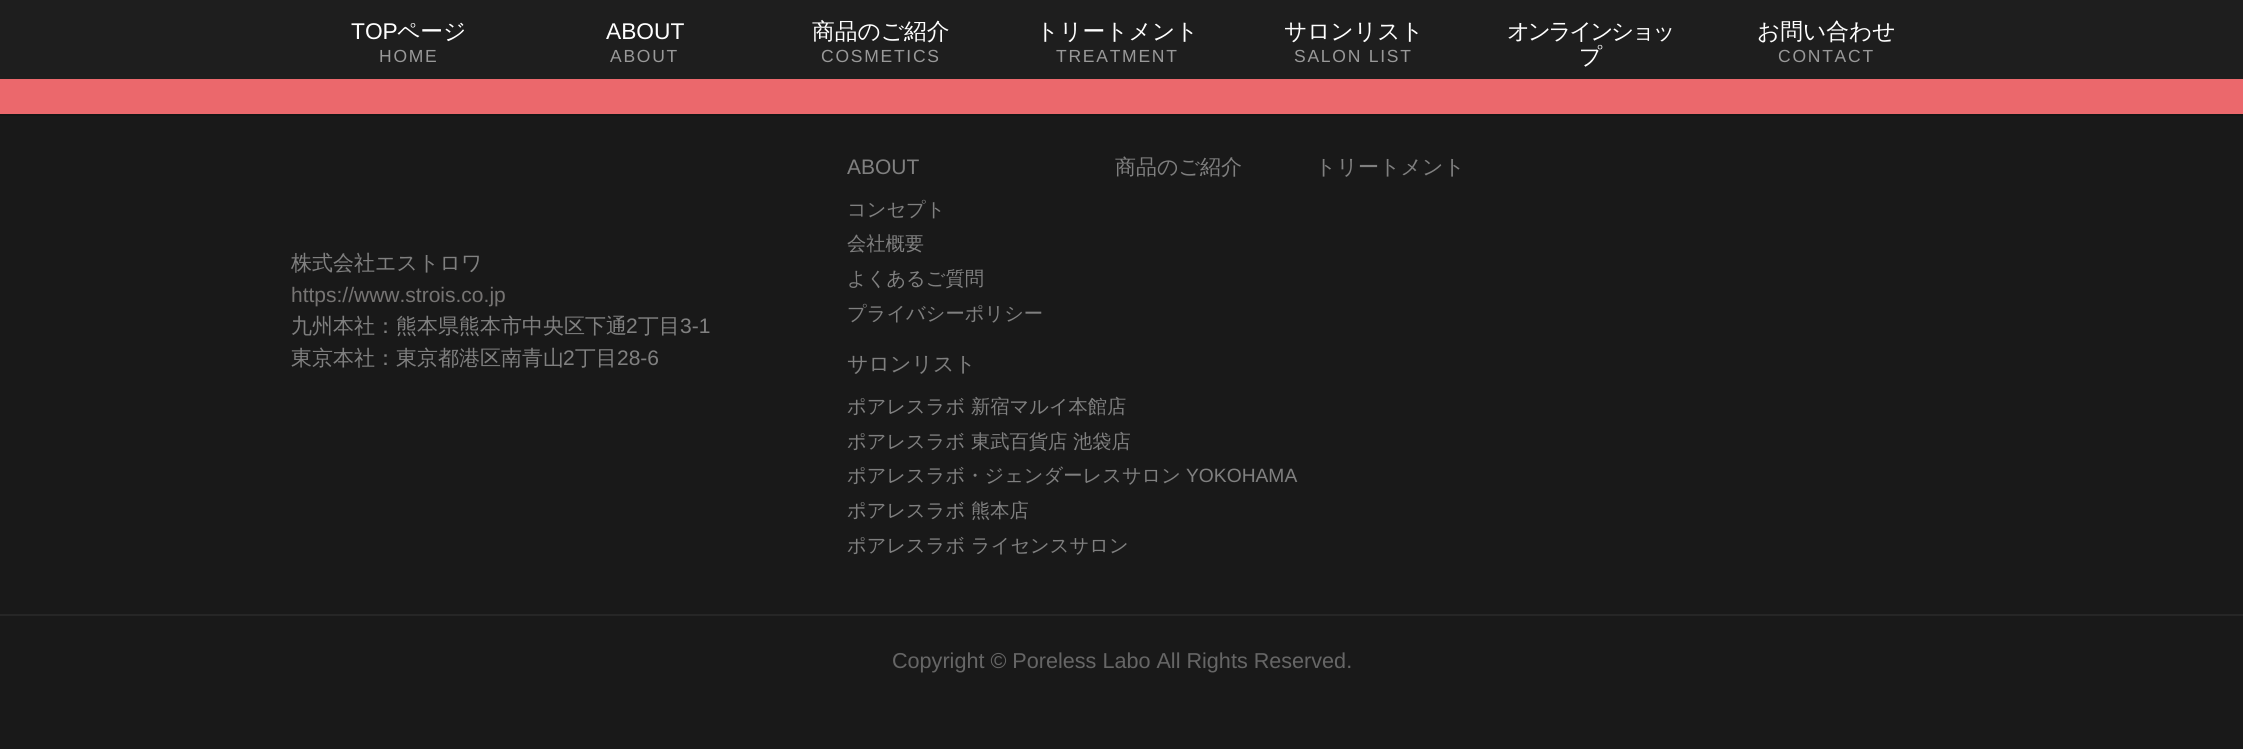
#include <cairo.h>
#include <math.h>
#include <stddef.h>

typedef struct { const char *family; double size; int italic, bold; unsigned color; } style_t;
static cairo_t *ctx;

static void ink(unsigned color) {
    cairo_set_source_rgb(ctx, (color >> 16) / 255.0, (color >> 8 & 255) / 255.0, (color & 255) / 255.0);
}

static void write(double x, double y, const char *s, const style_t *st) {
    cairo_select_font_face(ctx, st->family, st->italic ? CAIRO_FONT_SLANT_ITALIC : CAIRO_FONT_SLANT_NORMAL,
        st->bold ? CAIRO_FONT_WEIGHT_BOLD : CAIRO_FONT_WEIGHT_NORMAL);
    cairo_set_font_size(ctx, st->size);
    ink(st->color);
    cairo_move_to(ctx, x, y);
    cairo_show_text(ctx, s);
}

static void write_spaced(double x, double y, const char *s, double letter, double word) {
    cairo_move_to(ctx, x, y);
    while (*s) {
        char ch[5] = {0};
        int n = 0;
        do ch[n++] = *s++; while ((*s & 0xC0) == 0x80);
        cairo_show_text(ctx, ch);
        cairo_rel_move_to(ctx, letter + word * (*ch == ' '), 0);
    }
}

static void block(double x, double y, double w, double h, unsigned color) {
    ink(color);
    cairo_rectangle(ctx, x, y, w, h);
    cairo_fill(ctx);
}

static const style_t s1 = {"Liberation Sans", 22.75, 0, 0, 0xffffff};
static const style_t s2 = {"WenQuanYi Zen Hei Medium", 22.75, 0, 0, 0xffffff};
static const style_t s3 = {"WenQuanYi Zen Hei Medium", 21, 0, 0, 0x808080};
static const style_t s4 = {"Liberation Sans", 21, 0, 0, 0x767473};
static const style_t s5 = {"Liberation Sans", 21, 0, 0, 0x808080};
static const style_t s6 = {"WenQuanYi Zen Hei Medium", 19.25, 0, 0, 0x808080};
static const style_t s7 = {"Liberation Sans", 19.25, 0, 0, 0x808080};
static const style_t s8 = {"Liberation Sans", 21.6, 0, 0, 0x666666};

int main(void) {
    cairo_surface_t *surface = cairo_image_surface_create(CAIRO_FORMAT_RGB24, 2243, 749);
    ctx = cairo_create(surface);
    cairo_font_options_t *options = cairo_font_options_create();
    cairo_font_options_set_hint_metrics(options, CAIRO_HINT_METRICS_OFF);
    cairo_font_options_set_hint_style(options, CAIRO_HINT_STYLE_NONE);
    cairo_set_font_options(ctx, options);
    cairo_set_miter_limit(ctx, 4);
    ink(0x191919);
    cairo_paint(ctx);
    block(0, 0, 2243, 79, 0x1e1e1e);
    write(351, 39, "TOP", &s1);
    write(397, 39, "ページ", &s2);
    cairo_select_font_face(ctx, "Liberation Sans", CAIRO_FONT_SLANT_NORMAL, CAIRO_FONT_WEIGHT_NORMAL);
    cairo_set_font_size(ctx, 17.5);
    ink(0x999999);
    write_spaced(379, 62, "HOME", 1.75, 0);
    write(606, 39, "ABOUT", &s1);
    cairo_set_font_size(ctx, 17.5);
    ink(0x999999);
    write_spaced(610, 62, "ABOUT", 1.75, 0);
    write(812, 39, "商品のご紹介", &s2);
    cairo_select_font_face(ctx, "Liberation Sans", CAIRO_FONT_SLANT_NORMAL, CAIRO_FONT_WEIGHT_NORMAL);
    cairo_set_font_size(ctx, 17.5);
    ink(0x999999);
    write_spaced(821, 62, "COSMETICS", 1.75, 0);
    write(1036, 39, "トリートメント", &s2);
    cairo_select_font_face(ctx, "Liberation Sans", CAIRO_FONT_SLANT_NORMAL, CAIRO_FONT_WEIGHT_NORMAL);
    cairo_set_font_size(ctx, 17.5);
    ink(0x999999);
    write_spaced(1056, 62, "TREATMENT", 1.75, 0);
    write(1284, 39, "サロンリスト", &s2);
    cairo_select_font_face(ctx, "Liberation Sans", CAIRO_FONT_SLANT_NORMAL, CAIRO_FONT_WEIGHT_NORMAL);
    cairo_set_font_size(ctx, 17.5);
    ink(0x999999);
    write_spaced(1294, 62, "SALON LIST", 1.75, 0);
    cairo_select_font_face(ctx, "WenQuanYi Zen Hei Medium", CAIRO_FONT_SLANT_NORMAL, CAIRO_FONT_WEIGHT_NORMAL);
    cairo_set_font_size(ctx, 22.75);
    ink(0xffffff);
    write_spaced(1507, 39, "オンラインショッ", -2.5, 0);
    write_spaced(1579, 64, "プ", -2.5, 0);
    write(1757, 39, "お問い合わせ", &s2);
    cairo_select_font_face(ctx, "Liberation Sans", CAIRO_FONT_SLANT_NORMAL, CAIRO_FONT_WEIGHT_NORMAL);
    cairo_set_font_size(ctx, 17.5);
    ink(0x999999);
    write_spaced(1778, 62, "CONTACT", 1.75, 0);
    block(0, 79, 2243, 35, 0xeb686c);
    block(0, 114, 2243, 2, 0x151515);
    write(291, 270, "株式会社エストロワ", &s3);
    write(291, 302, "https://www.strois.co.jp", &s4);
    write(291, 333, "九州本社：熊本県熊本市中央区下通", &s3);
    write(626, 333, "2", &s5);
    write(638, 333, "丁目", &s3);
    write(680, 333, "3-1", &s5);
    write(291, 365, "東京本社：東京都港区南青山", &s3);
    write(563, 365, "2", &s5);
    write(575, 365, "丁目", &s3);
    write(617, 365, "28-6", &s5);
    write(847, 174, "ABOUT", &s5);
    write(847, 216, "コンセプト", &s6);
    write(847, 250, "会社概要", &s6);
    write(847, 285, "よくあるご質問", &s6);
    write(847, 320, "プライバシーポリシー", &s6);
    write(1115, 174, "商品のご紹介", &s3);
    write(1315, 174, "トリートメント", &s3);
    write(847, 371, "サロンリスト", &s3);
    write(847, 413, "ポアレスラボ 新宿マルイ本館店", &s6);
    write(847, 448, "ポアレスラボ 東武百貨店 池袋店", &s6);
    write(847, 482, "ポアレスラボ・ジェンダーレスサロン", &s6);
    write(1186, 482, "YOKOHAMA", &s7);
    write(847, 517, "ポアレスラボ 熊本店", &s6);
    write(847, 552, "ポアレスラボ ライセンスサロン", &s6);
    block(0, 614, 2243, 2, 0x262626);
    write(892, 668, "Copyright © Poreless Labo All Rights Reserved.", &s8);
    cairo_surface_write_to_png(surface, "screenshot.png");
    cairo_font_options_destroy(options);
    cairo_destroy(ctx);
    cairo_surface_destroy(surface);
    return 0;
}
